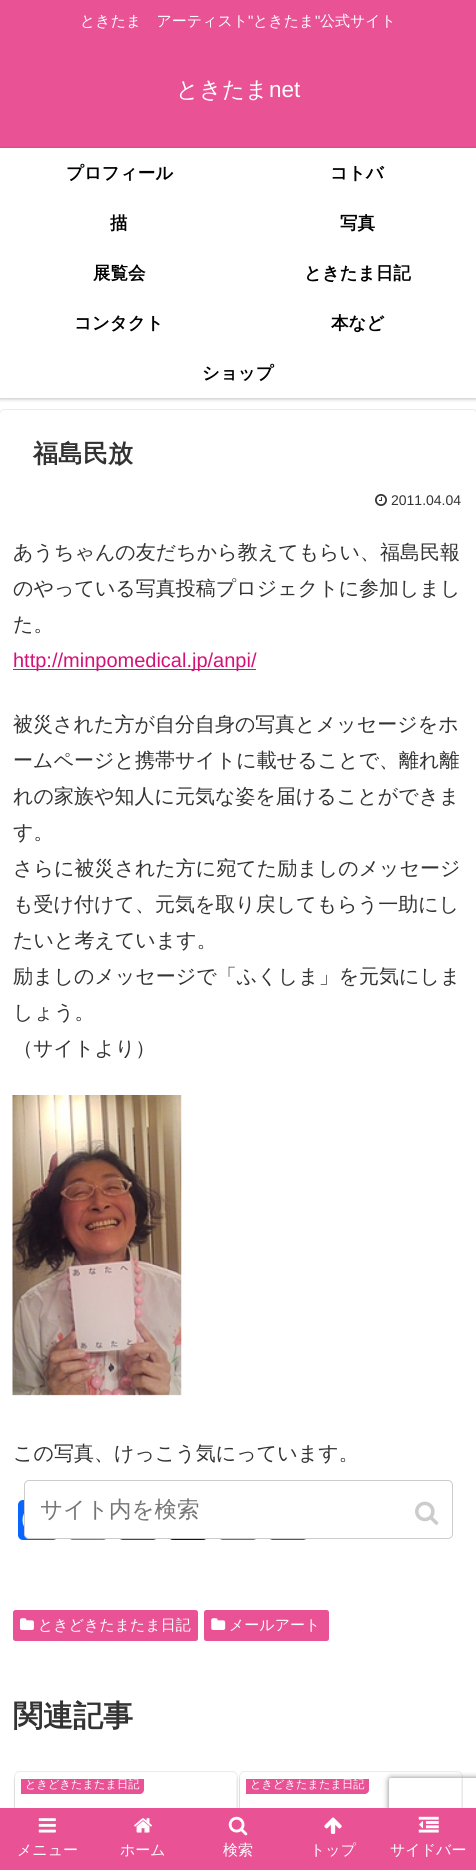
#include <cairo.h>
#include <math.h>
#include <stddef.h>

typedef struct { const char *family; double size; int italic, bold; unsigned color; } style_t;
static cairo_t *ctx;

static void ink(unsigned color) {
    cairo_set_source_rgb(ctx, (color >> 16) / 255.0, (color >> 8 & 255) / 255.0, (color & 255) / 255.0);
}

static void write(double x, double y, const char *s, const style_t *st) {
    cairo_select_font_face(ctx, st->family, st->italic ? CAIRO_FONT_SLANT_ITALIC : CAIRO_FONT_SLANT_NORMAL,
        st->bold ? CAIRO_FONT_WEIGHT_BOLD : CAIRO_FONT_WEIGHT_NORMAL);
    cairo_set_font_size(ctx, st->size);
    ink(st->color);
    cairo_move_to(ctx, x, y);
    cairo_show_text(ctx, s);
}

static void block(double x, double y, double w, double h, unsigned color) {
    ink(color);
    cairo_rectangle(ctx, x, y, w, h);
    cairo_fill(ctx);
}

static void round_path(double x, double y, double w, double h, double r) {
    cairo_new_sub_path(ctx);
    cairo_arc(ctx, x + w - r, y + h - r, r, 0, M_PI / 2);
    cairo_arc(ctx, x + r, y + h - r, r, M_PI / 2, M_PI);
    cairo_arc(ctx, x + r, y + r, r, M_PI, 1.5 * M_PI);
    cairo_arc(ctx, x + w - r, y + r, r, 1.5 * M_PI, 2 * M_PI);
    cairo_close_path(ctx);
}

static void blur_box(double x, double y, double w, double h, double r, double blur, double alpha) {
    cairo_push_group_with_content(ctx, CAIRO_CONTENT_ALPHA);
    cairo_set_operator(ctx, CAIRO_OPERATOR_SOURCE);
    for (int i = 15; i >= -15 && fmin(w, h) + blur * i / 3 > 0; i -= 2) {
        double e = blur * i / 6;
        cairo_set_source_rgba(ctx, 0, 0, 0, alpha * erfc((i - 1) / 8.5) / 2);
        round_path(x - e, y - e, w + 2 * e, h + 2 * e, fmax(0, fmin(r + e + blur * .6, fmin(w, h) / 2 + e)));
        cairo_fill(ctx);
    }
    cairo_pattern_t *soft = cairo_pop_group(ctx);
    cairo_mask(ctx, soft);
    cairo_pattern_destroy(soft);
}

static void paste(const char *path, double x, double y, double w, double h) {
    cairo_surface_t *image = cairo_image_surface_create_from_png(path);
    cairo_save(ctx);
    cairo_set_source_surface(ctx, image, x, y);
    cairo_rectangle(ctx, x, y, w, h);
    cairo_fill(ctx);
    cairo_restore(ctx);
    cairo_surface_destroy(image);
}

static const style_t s1 = {"WenQuanYi Zen Hei Medium", 15, 0, 0, 0xffffff};
static const style_t s2 = {"Liberation Sans", 15, 0, 0, 0xffffff};
static const style_t s3 = {"WenQuanYi Zen Hei Medium", 22.5, 0, 0, 0xffffff};
static const style_t s4 = {"Liberation Sans", 22.5, 0, 0, 0xffffff};
static const style_t s5 = {"WenQuanYi Zen Hei", 17.5, 0, 1, 0x000000};
static const style_t s6 = {"WenQuanYi Zen Hei", 25, 0, 1, 0x333333};
static const style_t s7 = {"Liberation Sans", 14, 0, 0, 0x333333};
static const style_t s8 = {"WenQuanYi Zen Hei Medium", 20, 0, 0, 0x333333};
static const style_t s9 = {"Liberation Sans", 20, 0, 0, 0xd41177};
static const style_t s10 = {"WenQuanYi Zen Hei", 30, 0, 1, 0x333333};
static const style_t s11 = {"WenQuanYi Zen Hei Medium", 11.25, 0, 0, 0xffffff};
static const style_t s12 = {"WenQuanYi Zen Hei Medium", 22.5, 0, 0, 0x757575};

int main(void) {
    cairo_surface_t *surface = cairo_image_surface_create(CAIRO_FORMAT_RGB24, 476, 1870);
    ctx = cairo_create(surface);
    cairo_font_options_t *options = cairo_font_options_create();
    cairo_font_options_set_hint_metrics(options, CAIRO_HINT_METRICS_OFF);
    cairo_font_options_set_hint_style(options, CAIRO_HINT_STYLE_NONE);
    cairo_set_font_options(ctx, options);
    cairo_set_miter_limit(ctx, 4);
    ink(0xffffff);
    cairo_paint(ctx);
    block(0, 0, 476, 148, 0xe95295);
    write(80, 26, "ときたま　アーティスト", &s1);
    write(248, 26, "\"", &s2);
    write(253, 26, "ときたま", &s1);
    write(315, 26, "\"", &s2);
    write(320, 26, "公式サイト", &s1);
    write(176, 97, "ときたま", &s3);
    write(269, 97, "net", &s4);
    ink(0x000000);
    blur_box(0, 149, 476, 250, 0, 2, 0.25);
    block(0, 148, 476, 250, 0xffffff);
    write(66, 179, "プロフィール", &s5);
    write(330, 179, "コトバ", &s5);
    write(110, 229, "描", &s5);
    write(340, 229, "写真", &s5);
    write(93, 279, "展覧会", &s5);
    write(304, 279, "ときたま日記", &s5);
    write(74, 329, "コンタクト", &s5);
    write(331, 329, "本など", &s5);
    write(202, 379, "ショップ", &s5);
    round_path(-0.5, 409.5, 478, 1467, 5.5);
    ink(0xebebeb);
    cairo_set_line_width(ctx, 1);
    cairo_stroke(ctx);
    ink(0xffffff);
    round_path(0, 410, 476, 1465, 5);
    cairo_fill(ctx);
    write(33, 462, "福島民放", &s6);
    paste("pic1.png", 375, 494, 12, 12);
    write(391, 505, "2011.04.04", &s7);
    write(13, 559, "あうちゃんの友だちから教えてもらい、福島民報", &s8);
    write(13, 595, "のやっている写真投稿プロジェクトに参加しまし", &s8);
    write(13, 631, "た。", &s8);
    block(13, 669, 243, 1, 0xd41177);
    write(13, 667, "http://minpomedical.jp/anpi/", &s9);
    write(13, 731, "被災された方が自分自身の写真とメッセージをホ", &s8);
    write(13, 767, "ームページと携帯サイトに載せることで、離れ離", &s8);
    write(13, 803, "れの家族や知人に元気な姿を届けることができま", &s8);
    write(13, 839, "す。", &s8);
    write(13, 875, "さらに被災された方に宛てた励ましのメッセージ", &s8);
    write(13, 911, "も受け付けて、元気を取り戻してもらう一助にし", &s8);
    write(13, 947, "たいと考えています。", &s8);
    write(13, 983, "励ましのメッセージで「ふくしま」を元気にしま", &s8);
    write(13, 1019, "しょう。", &s8);
    write(13, 1055, "（サイトより）", &s8);
    paste("pic2.png", 12, 1095, 170, 301);
    write(13, 1460, "この写真、けっこう気にっています。", &s8);
    ink(0x0866ff);
    round_path(18, 1500, 40, 40, 5);
    cairo_fill(ctx);
    paste("pic3.png", 22, 1513, 2, 14);
    ink(0x1d9bf0);
    round_path(68, 1500, 40, 40, 5);
    cairo_fill(ctx);
    ink(0xe60023);
    round_path(118, 1500, 40, 40, 5);
    cairo_fill(ctx);
    ink(0x001935);
    round_path(168, 1500, 40, 40, 5);
    cairo_fill(ctx);
    ink(0x00c300);
    round_path(218, 1500, 40, 40, 5);
    cairo_fill(ctx);
    ink(0x0166ff);
    round_path(268, 1500, 40, 40, 5);
    cairo_fill(ctx);
    ink(0xe95295);
    round_path(13, 1610, 185, 31, 2.5);
    cairo_fill(ctx);
    paste("pic4.png", 20, 1618, 14, 12);
    write(38, 1630, "ときどきたまたま日記", &s1);
    ink(0xe95295);
    round_path(204, 1610, 125, 31, 2.5);
    cairo_fill(ctx);
    paste("pic5.png", 211, 1618, 15, 12);
    write(229, 1630, "メールアート", &s1);
    write(13, 1726, "関連記事", &s10);
    round_path(14.5, 1771.5, 223, 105, 5.5);
    ink(0xebebeb);
    cairo_stroke(ctx);
    cairo_save(ctx);
    cairo_set_fill_rule(ctx, CAIRO_FILL_RULE_EVEN_ODD);
    cairo_new_path(ctx);
    cairo_move_to(ctx, 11, 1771);
    cairo_line_to(ctx, 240, 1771);
    cairo_line_to(ctx, 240, 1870);
    cairo_line_to(ctx, 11, 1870);
    cairo_close_path(ctx);
    cairo_move_to(ctx, 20, 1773);
    cairo_line_to(ctx, 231, 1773);
    cairo_curve_to(ctx, 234, 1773, 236, 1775, 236, 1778);
    cairo_line_to(ctx, 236, 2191);
    cairo_curve_to(ctx, 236, 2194, 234, 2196, 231, 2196);
    cairo_line_to(ctx, 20, 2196);
    cairo_curve_to(ctx, 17, 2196, 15, 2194, 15, 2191);
    cairo_line_to(ctx, 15, 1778);
    cairo_curve_to(ctx, 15, 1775, 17, 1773, 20, 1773);
    cairo_close_path(ctx);
    cairo_clip(ctx);
    ink(0x000000);
    blur_box(15, 1775, 221, 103, 5, 1, 0.16);
    cairo_restore(ctx);
    ink(0xe95295);
    cairo_new_path(ctx);
    cairo_move_to(ctx, 21, 1779);
    cairo_line_to(ctx, 144, 1779);
    cairo_line_to(ctx, 144, 1790);
    cairo_curve_to(ctx, 144, 1792, 142, 1794, 140, 1794);
    cairo_line_to(ctx, 21, 1794);
    cairo_close_path(ctx);
    cairo_fill(ctx);
    write(25, 1788, "ときどきたまたま日記", &s11);
    round_path(239.5, 1771.5, 223, 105, 5.5);
    ink(0xebebeb);
    cairo_stroke(ctx);
    cairo_save(ctx);
    cairo_set_fill_rule(ctx, CAIRO_FILL_RULE_EVEN_ODD);
    cairo_new_path(ctx);
    cairo_move_to(ctx, 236, 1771);
    cairo_line_to(ctx, 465, 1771);
    cairo_line_to(ctx, 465, 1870);
    cairo_line_to(ctx, 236, 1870);
    cairo_close_path(ctx);
    cairo_move_to(ctx, 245, 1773);
    cairo_line_to(ctx, 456, 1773);
    cairo_curve_to(ctx, 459, 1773, 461, 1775, 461, 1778);
    cairo_line_to(ctx, 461, 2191);
    cairo_curve_to(ctx, 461, 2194, 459, 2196, 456, 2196);
    cairo_line_to(ctx, 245, 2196);
    cairo_curve_to(ctx, 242, 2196, 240, 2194, 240, 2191);
    cairo_line_to(ctx, 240, 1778);
    cairo_curve_to(ctx, 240, 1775, 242, 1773, 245, 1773);
    cairo_close_path(ctx);
    cairo_clip(ctx);
    ink(0x000000);
    blur_box(240, 1775, 221, 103, 5, 1, 0.16);
    cairo_restore(ctx);
    ink(0xe95295);
    cairo_new_path(ctx);
    cairo_move_to(ctx, 246, 1779);
    cairo_line_to(ctx, 369, 1779);
    cairo_line_to(ctx, 369, 1790);
    cairo_curve_to(ctx, 369, 1792, 367, 1794, 365, 1794);
    cairo_line_to(ctx, 246, 1794);
    cairo_close_path(ctx);
    cairo_fill(ctx);
    write(250, 1788, "ときどきたまたま日記", &s11);
    cairo_save(ctx);
    cairo_set_fill_rule(ctx, CAIRO_FILL_RULE_EVEN_ODD);
    cairo_new_path(ctx);
    cairo_move_to(ctx, 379, 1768);
    cairo_line_to(ctx, 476, 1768);
    cairo_line_to(ctx, 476, 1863);
    cairo_line_to(ctx, 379, 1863);
    cairo_close_path(ctx);
    cairo_move_to(ctx, 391.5, 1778);
    cairo_line_to(ctx, 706.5, 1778);
    cairo_curve_to(ctx, 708, 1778, 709, 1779, 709, 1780.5);
    cairo_line_to(ctx, 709, 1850.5);
    cairo_curve_to(ctx, 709, 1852, 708, 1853, 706.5, 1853);
    cairo_line_to(ctx, 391.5, 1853);
    cairo_curve_to(ctx, 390, 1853, 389, 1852, 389, 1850.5);
    cairo_line_to(ctx, 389, 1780.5);
    cairo_curve_to(ctx, 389, 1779, 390, 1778, 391.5, 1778);
    cairo_close_path(ctx);
    cairo_clip(ctx);
    ink(0x808080);
    blur_box(389, 1778, 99, 75, 2.5, 3, 1);
    cairo_restore(ctx);
    block(0, 1808, 476, 62, 0xe95295);
    ink(0xffffff);
    round_path(24.5, 1480.5, 428, 58, 4.5);
    cairo_fill_preserve(ctx);
    ink(0xcccccc);
    cairo_stroke(ctx);
    write(40, 1517, "サイト内を検索", &s12);
    paste("pic6.png", 415, 1501, 24, 24);
    paste("pic7.png", 228, 1816, 20, 20);
    write(223, 1855, "検索", &s1);
    paste("pic8.png", 324, 1817, 18, 17);
    write(310, 1855, "トップ", &s1);
    paste("pic9.png", 418, 1816, 21, 17);
    write(390, 1855, "サイドバー", &s1);
    paste("pic10.png", 38, 1818, 18, 15);
    write(17, 1855, "メニュー", &s1);
    paste("pic11.png", 134, 1818, 18, 15);
    write(120, 1855, "ホーム", &s1);
    cairo_surface_write_to_png(surface, "screenshot.png");
    cairo_font_options_destroy(options);
    cairo_destroy(ctx);
    cairo_surface_destroy(surface);
    return 0;
}
